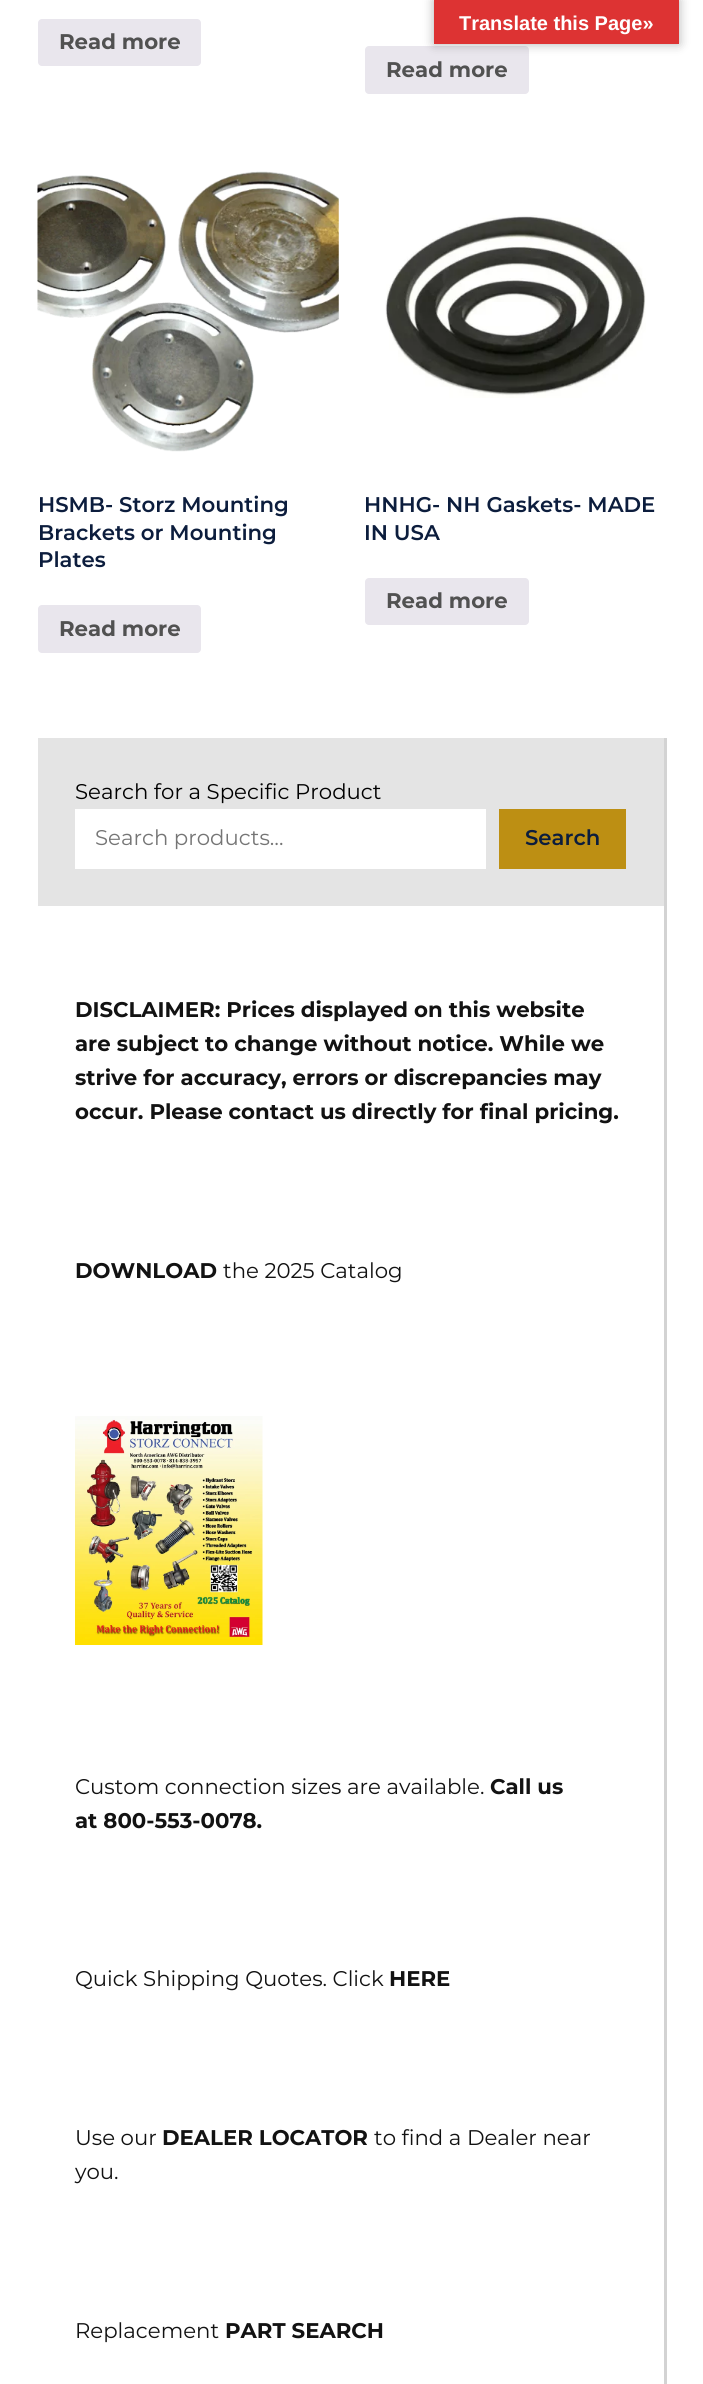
#include <cairo.h>
#include <math.h>
#include <stddef.h>

typedef struct { const char *family; double size; int italic, bold; unsigned color; } style_t;
static cairo_t *ctx;

static void ink(unsigned color) {
    cairo_set_source_rgb(ctx, (color >> 16) / 255.0, (color >> 8 & 255) / 255.0, (color & 255) / 255.0);
}

static void write(double x, double y, const char *s, const style_t *st) {
    cairo_select_font_face(ctx, st->family, st->italic ? CAIRO_FONT_SLANT_ITALIC : CAIRO_FONT_SLANT_NORMAL,
        st->bold ? CAIRO_FONT_WEIGHT_BOLD : CAIRO_FONT_WEIGHT_NORMAL);
    cairo_set_font_size(ctx, st->size);
    ink(st->color);
    cairo_move_to(ctx, x, y);
    cairo_show_text(ctx, s);
}

static void block(double x, double y, double w, double h, unsigned color) {
    ink(color);
    cairo_rectangle(ctx, x, y, w, h);
    cairo_fill(ctx);
}

static void round_path(double x, double y, double w, double h, double r) {
    cairo_new_sub_path(ctx);
    cairo_arc(ctx, x + w - r, y + h - r, r, 0, M_PI / 2);
    cairo_arc(ctx, x + r, y + h - r, r, M_PI / 2, M_PI);
    cairo_arc(ctx, x + r, y + r, r, M_PI, 1.5 * M_PI);
    cairo_arc(ctx, x + w - r, y + r, r, 1.5 * M_PI, 2 * M_PI);
    cairo_close_path(ctx);
}

static void blur_box(double x, double y, double w, double h, double r, double blur, double alpha) {
    cairo_push_group_with_content(ctx, CAIRO_CONTENT_ALPHA);
    cairo_set_operator(ctx, CAIRO_OPERATOR_SOURCE);
    for (int i = 15; i >= -15 && fmin(w, h) + blur * i / 3 > 0; i -= 2) {
        double e = blur * i / 6;
        cairo_set_source_rgba(ctx, 0, 0, 0, alpha * erfc((i - 1) / 8.5) / 2);
        round_path(x - e, y - e, w + 2 * e, h + 2 * e, fmax(0, fmin(r + e + blur * .6, fmin(w, h) / 2 + e)));
        cairo_fill(ctx);
    }
    cairo_pattern_t *soft = cairo_pop_group(ctx);
    cairo_mask(ctx, soft);
    cairo_pattern_destroy(soft);
}

static void paste(const char *path, double x, double y, double w, double h) {
    cairo_surface_t *image = cairo_image_surface_create_from_png(path);
    cairo_save(ctx);
    cairo_set_source_surface(ctx, image, x, y);
    cairo_rectangle(ctx, x, y, w, h);
    cairo_fill(ctx);
    cairo_restore(ctx);
    cairo_surface_destroy(image);
}

static const style_t s1 = {"Liberation Sans", 20, 0, 1, 0xffffff};
static const style_t s2 = {"Montserrat", 21.25, 0, 1, 0x515151};
static const style_t s3 = {"Montserrat SemiBold", 21.25, 0, 0, 0x0c1d3d};
static const style_t s4 = {"Montserrat", 21.25, 0, 0, 0x000000};
static const style_t s5 = {"Montserrat", 21.25, 0, 0, 0x757575};
static const style_t s6 = {"Montserrat", 21.25, 0, 1, 0x121212};
static const style_t s7 = {"Montserrat", 21.25, 0, 0, 0x121212};

int main(void) {
    cairo_surface_t *surface = cairo_image_surface_create(CAIRO_FORMAT_RGB24, 703, 2384);
    ctx = cairo_create(surface);
    cairo_font_options_t *options = cairo_font_options_create();
    cairo_font_options_set_hint_metrics(options, CAIRO_HINT_METRICS_OFF);
    cairo_font_options_set_hint_style(options, CAIRO_HINT_STYLE_NONE);
    cairo_set_font_options(ctx, options);
    cairo_set_miter_limit(ctx, 4);
    ink(0xffffff);
    cairo_paint(ctx);
    ink(0xe9e6ed);
    round_path(365, 46, 164, 48, 4);
    cairo_fill(ctx);
    ink(0x000000);
    blur_box(434, 0, 245, 44, 0, 5.5, 0.3);
    block(434, 0, 245, 44, 0xdd3333);
    write(459, 30, "Translate this Page»", &s1);
    ink(0xe9e6ed);
    round_path(38, 19, 163, 47, 4);
    cairo_fill(ctx);
    write(59, 49, "Read more", &s2);
    write(386, 77, "Read more", &s2);
    paste("pic1.png", 37, 171, 302, 281);
    write(38, 512, "HSMB- Storz Mounting", &s3);
    write(38, 540, "Brackets or Mounting", &s3);
    write(38, 567, "Plates", &s3);
    ink(0xe9e6ed);
    round_path(38, 605, 163, 48, 4);
    cairo_fill(ctx);
    write(59, 636, "Read more", &s2);
    paste("pic2.png", 385, 215, 261, 183);
    write(364, 512, "HNHG- NH Gaskets- MADE", &s3);
    write(364, 540, "IN USA", &s3);
    ink(0xe9e6ed);
    round_path(365, 578, 164, 47, 4);
    cairo_fill(ctx);
    write(386, 608, "Read more", &s2);
    block(664, 738, 3, 1646, 0xd3d3d3);
    block(38, 738, 626, 168, 0xe4e4e4);
    write(75, 799, "Search for a Specific Product", &s4);
    block(75, 809, 411, 60, 0xffffff);
    write(95, 845, "Search products…", &s5);
    block(499, 809, 127, 60, 0xbd8f13);
    write(525, 845, "Search", &s3);
    write(75, 1017, "DISCLAIMER: Prices displayed on this website", &s6);
    write(75, 1051, "are subject to change without notice. While we", &s6);
    write(75, 1085, "strive for accuracy, errors or discrepancies may", &s6);
    write(75, 1119, "occur. Please contact us directly for final pricing.", &s6);
    write(75, 1278, "DOWNLOAD", &s6);
    write(223, 1278, "the 2025 Catalog", &s7);
    paste("pic3.png", 75, 1416, 188, 229);
    write(75, 1794, "Custom connection sizes are available.", &s7);
    write(490, 1794, "Call us", &s6);
    write(75, 1828, "at 800-553-0078.", &s6);
    write(75, 1986, "Quick Shipping Quotes. Click", &s7);
    write(389, 1986, "HERE", &s6);
    write(75, 2145, "Use our", &s7);
    write(162, 2145, "DEALER LOCATOR", &s6);
    write(374, 2145, "to find a Dealer near", &s7);
    write(75, 2179, "you.", &s7);
    write(75, 2338, "Replacement", &s7);
    write(225, 2338, "PART SEARCH", &s6);
    cairo_surface_write_to_png(surface, "screenshot.png");
    cairo_font_options_destroy(options);
    cairo_destroy(ctx);
    cairo_surface_destroy(surface);
    return 0;
}
